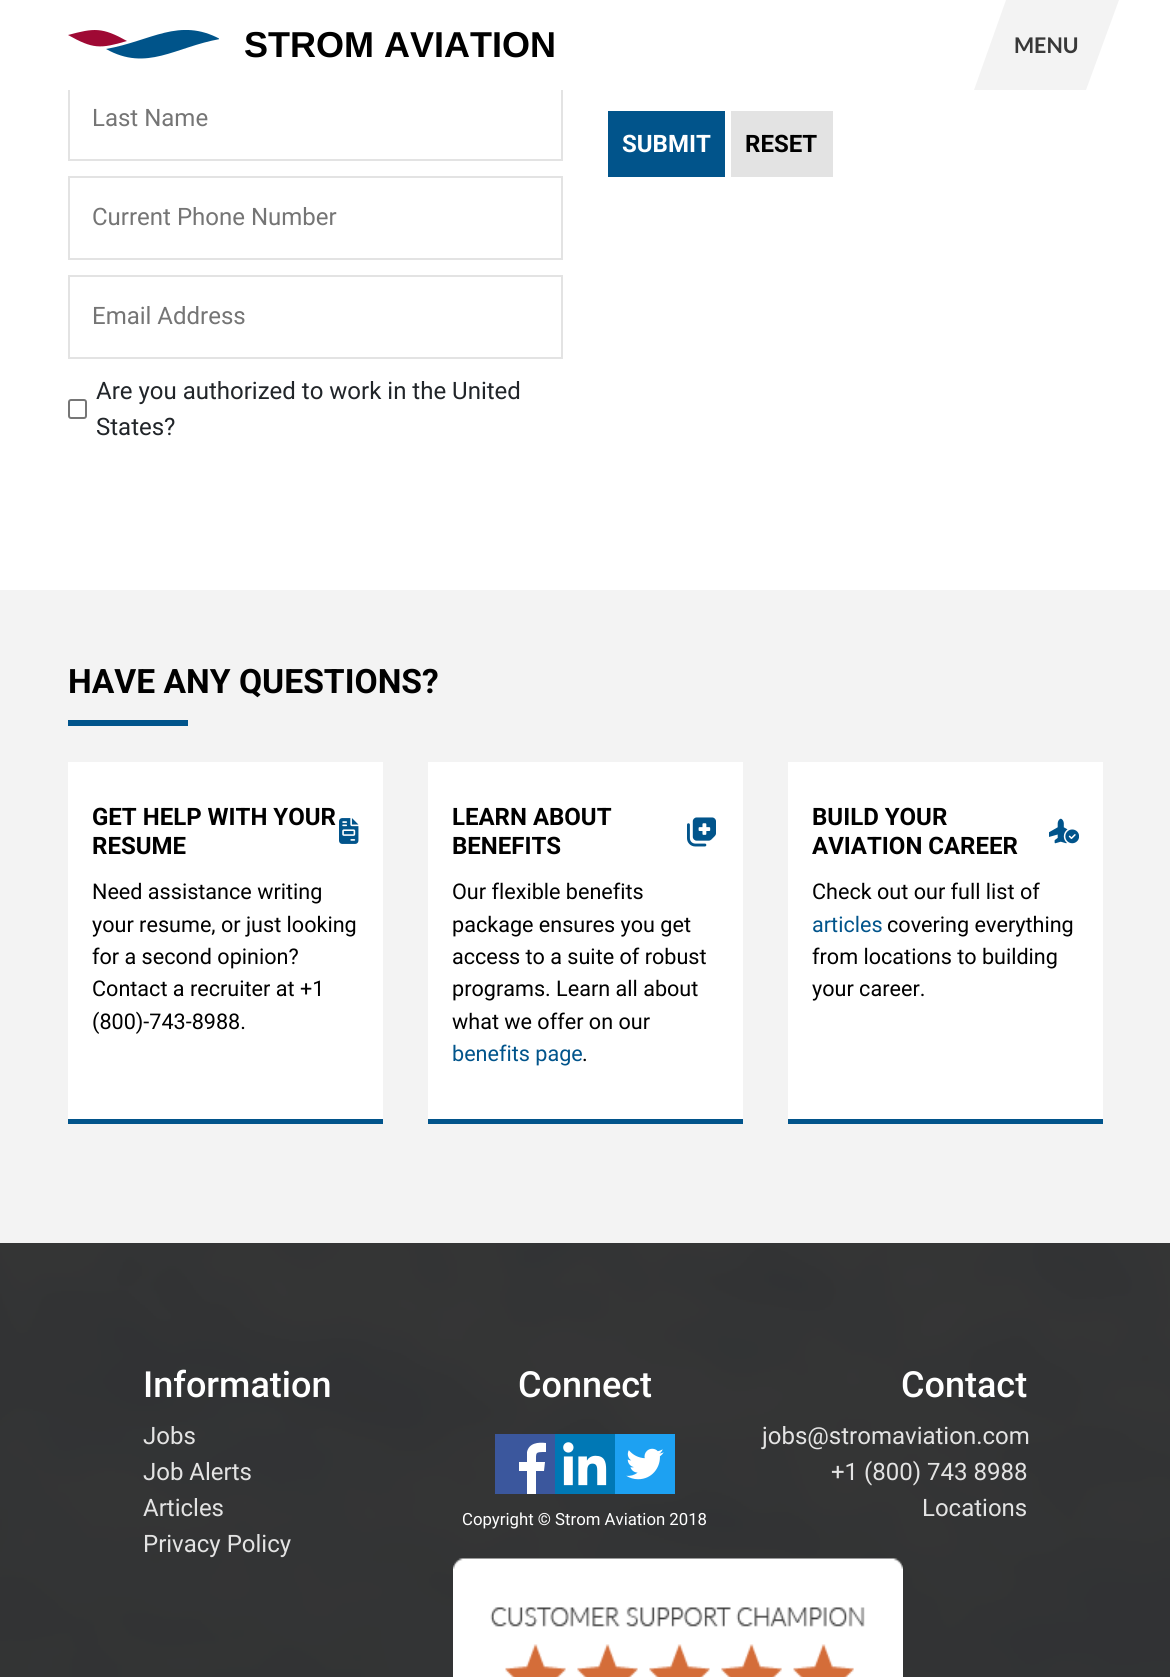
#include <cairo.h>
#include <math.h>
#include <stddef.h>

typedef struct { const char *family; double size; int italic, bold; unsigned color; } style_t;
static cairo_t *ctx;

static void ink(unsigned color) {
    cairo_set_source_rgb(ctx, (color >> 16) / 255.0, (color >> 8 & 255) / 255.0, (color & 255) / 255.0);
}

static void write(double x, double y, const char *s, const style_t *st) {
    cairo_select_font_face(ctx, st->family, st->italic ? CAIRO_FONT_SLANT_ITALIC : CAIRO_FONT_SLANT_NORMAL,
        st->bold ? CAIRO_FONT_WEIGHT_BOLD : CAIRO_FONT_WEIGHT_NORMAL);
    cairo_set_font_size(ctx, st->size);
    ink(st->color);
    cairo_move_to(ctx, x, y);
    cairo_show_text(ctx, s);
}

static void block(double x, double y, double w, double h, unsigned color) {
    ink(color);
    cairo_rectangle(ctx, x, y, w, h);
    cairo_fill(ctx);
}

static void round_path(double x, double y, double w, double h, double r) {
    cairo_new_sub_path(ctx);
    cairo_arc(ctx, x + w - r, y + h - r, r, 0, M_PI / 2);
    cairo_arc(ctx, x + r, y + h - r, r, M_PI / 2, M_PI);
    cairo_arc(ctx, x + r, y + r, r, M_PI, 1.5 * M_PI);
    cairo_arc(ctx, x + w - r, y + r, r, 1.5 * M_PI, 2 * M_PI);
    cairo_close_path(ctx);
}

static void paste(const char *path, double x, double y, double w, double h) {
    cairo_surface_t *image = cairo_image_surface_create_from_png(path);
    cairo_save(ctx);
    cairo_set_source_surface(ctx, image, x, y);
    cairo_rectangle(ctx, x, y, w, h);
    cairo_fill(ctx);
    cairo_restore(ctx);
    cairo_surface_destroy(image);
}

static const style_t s1 = {"Arimo", 36, 0, 1, 0x000000};
static const style_t s2 = {"Lato", 21.6, 0, 1, 0x383838};
static const style_t s3 = {"Roboto", 24, 0, 0, 0x757575};
static const style_t s4 = {"Roboto", 24, 0, 0, 0x212529};
static const style_t s5 = {"Roboto", 24, 0, 1, 0xffffff};
static const style_t s6 = {"Roboto", 24, 0, 1, 0x000000};
static const style_t s7 = {"Roboto", 33.6, 0, 1, 0x000000};
static const style_t s8 = {"Roboto", 21.6, 0, 0, 0x000000};
static const style_t s9 = {"Roboto", 21.6, 0, 0, 0x01548b};
static const style_t s10 = {"Roboto Medium", 36, 0, 0, 0xffffff};
static const style_t s11 = {"Roboto", 24, 0, 0, 0xe3e3e3};
static const style_t s12 = {"Roboto", 16.75, 0, 0, 0xffffff};

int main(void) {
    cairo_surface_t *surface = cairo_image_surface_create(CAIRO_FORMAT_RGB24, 1170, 1677);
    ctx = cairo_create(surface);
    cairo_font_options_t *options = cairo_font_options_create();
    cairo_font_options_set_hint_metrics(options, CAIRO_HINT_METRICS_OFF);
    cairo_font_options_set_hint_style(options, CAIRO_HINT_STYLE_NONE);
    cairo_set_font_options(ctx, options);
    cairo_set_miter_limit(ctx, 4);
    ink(0xf3f3f3);
    cairo_paint(ctx);
    block(0, 90, 1170, 500, 0xffffff);
    cairo_rectangle(ctx, 69, 78, 493, 82);
    ink(0xe3e3e3);
    cairo_stroke(ctx);
    block(0, 0, 1170, 90, 0xffffff);
    ink(0x9f0934);
    cairo_set_fill_rule(ctx, CAIRO_FILL_RULE_EVEN_ODD);
    cairo_new_path(ctx);
    cairo_move_to(ctx, 68, 35);
    cairo_curve_to(ctx, 94, 28, 102, 27, 127, 41);
    cairo_curve_to(ctx, 100, 49, 93, 49, 68, 35);
    cairo_close_path(ctx);
    cairo_fill(ctx);
    cairo_save(ctx);
    cairo_set_fill_rule(ctx, CAIRO_FILL_RULE_WINDING);
    cairo_rectangle(ctx, 68, 30, 151, 30);
    cairo_clip(ctx);
    ink(0x00548a);
    cairo_set_fill_rule(ctx, CAIRO_FILL_RULE_EVEN_ODD);
    cairo_new_path(ctx);
    cairo_move_to(ctx, 106, 49);
    cairo_curve_to(ctx, 151, 41, 179, 17, 220, 39);
    cairo_curve_to(ctx, 175, 47, 147, 72, 106, 49);
    cairo_close_path(ctx);
    cairo_fill(ctx);
    cairo_restore(ctx);
    write(244, 57, "STROM AVIATION", &s1);
    ink(0xf3f3f3);
    cairo_set_fill_rule(ctx, CAIRO_FILL_RULE_WINDING);
    cairo_new_path(ctx);
    cairo_move_to(ctx, 1006, 0);
    cairo_line_to(ctx, 1119, 0);
    cairo_line_to(ctx, 1086, 90);
    cairo_line_to(ctx, 974, 90);
    cairo_close_path(ctx);
    cairo_fill(ctx);
    write(1014, 53, "MENU", &s2);
    write(92, 126, "Last Name", &s3);
    cairo_rectangle(ctx, 69, 177, 493, 82);
    ink(0xe3e3e3);
    cairo_stroke(ctx);
    write(92, 225, "Current Phone Number", &s3);
    cairo_rectangle(ctx, 69, 276, 493, 82);
    ink(0xe3e3e3);
    cairo_stroke(ctx);
    write(92, 324, "Email Address", &s3);
    round_path(69, 400, 17, 18, 2);
    ink(0x767676);
    cairo_stroke(ctx);
    write(96, 399, "Are you authorized to work in the United", &s4);
    write(96, 435, "States?", &s4);
    block(608, 111, 117, 66, 0x01548b);
    write(622, 152, "SUBMIT", &s5);
    block(731, 111, 102, 66, 0xe3e3e3);
    write(745, 152, "RESET", &s6);
    write(68, 693, "HAVE ANY QUESTIONS?", &s7);
    block(68, 720, 120, 6, 0x01548b);
    block(68, 762, 315, 357, 0xffffff);
    block(68, 1119, 315, 5, 0x01548b);
    write(92, 825, "GET HELP WITH YOUR", &s6);
    paste("pic1.png", 339, 818, 20, 26);
    write(92, 854, "RESUME", &s6);
    write(92, 899, "Need assistance writing", &s8);
    write(92, 932, "your resume, or just looking", &s8);
    write(92, 964, "for a second opinion?", &s8);
    write(92, 996, "Contact a recruiter at +1", &s8);
    write(92, 1029, "(800)-743-8988.", &s8);
    block(428, 762, 315, 357, 0xffffff);
    block(428, 1119, 315, 5, 0x01548b);
    write(452, 825, "LEARN ABOUT", &s6);
    paste("pic2.png", 687, 817, 29, 30);
    write(452, 854, "BENEFITS", &s6);
    write(452, 899, "Our flexible benefits", &s8);
    write(452, 932, "package ensures you get", &s8);
    write(452, 964, "access to a suite of robust", &s8);
    write(452, 996, "programs. Learn all about", &s8);
    write(452, 1029, "what we offer on our", &s8);
    write(452, 1061, "benefits page", &s9);
    write(582, 1061, ".", &s8);
    block(788, 762, 315, 357, 0xffffff);
    block(788, 1119, 315, 5, 0x01548b);
    write(812, 825, "BUILD YOUR", &s6);
    paste("pic3.png", 1049, 818, 30, 26);
    write(812, 854, "AVIATION CAREER", &s6);
    write(812, 899, "Check out our full list of", &s8);
    write(812, 932, "articles", &s9);
    write(887, 932, "covering everything", &s8);
    write(812, 964, "from locations to building", &s8);
    write(812, 996, "your career.", &s8);
    paste("pic4.png", 0, 1243, 1170, 434);
    write(143, 1397, "Information", &s10);
    write(143, 1444, "Jobs", &s11);
    write(143, 1480, "Job Alerts", &s11);
    write(143, 1516, "Articles", &s11);
    write(143, 1552, "Privacy Policy", &s11);
    write(518, 1397, "Connect", &s10);
    block(495, 1434, 60, 60, 0x3b579d);
    ink(0xffffff);
    cairo_new_path(ctx);
    cairo_move_to(ctx, 536, 1494);
    cairo_line_to(ctx, 536, 1471);
    cairo_line_to(ctx, 544, 1471);
    cairo_line_to(ctx, 545, 1462);
    cairo_line_to(ctx, 536, 1462);
    cairo_curve_to(ctx, 536, 1452, 535, 1452, 546, 1452);
    cairo_line_to(ctx, 546, 1443);
    cairo_curve_to(ctx, 538, 1442, 529, 1443, 527, 1452);
    cairo_line_to(ctx, 527, 1462);
    cairo_line_to(ctx, 519, 1462);
    cairo_line_to(ctx, 519, 1471);
    cairo_line_to(ctx, 527, 1471);
    cairo_line_to(ctx, 527, 1494);
    cairo_close_path(ctx);
    cairo_fill(ctx);
    paste("pic5.png", 555, 1434, 60, 60);
    paste("pic6.png", 615, 1434, 60, 60);
    write(462, 1525, "Copyright © Strom Aviation 2018", &s12);
    paste("pic7.png", 453, 1558, 450, 119);
    write(901, 1397, "Contact", &s10);
    write(762, 1444, "jobs@stromaviation.com", &s11);
    write(831, 1480, "+1 (800) 743 8988", &s11);
    write(922, 1516, "Locations", &s11);
    cairo_surface_write_to_png(surface, "screenshot.png");
    cairo_font_options_destroy(options);
    cairo_destroy(ctx);
    cairo_surface_destroy(surface);
    return 0;
}
